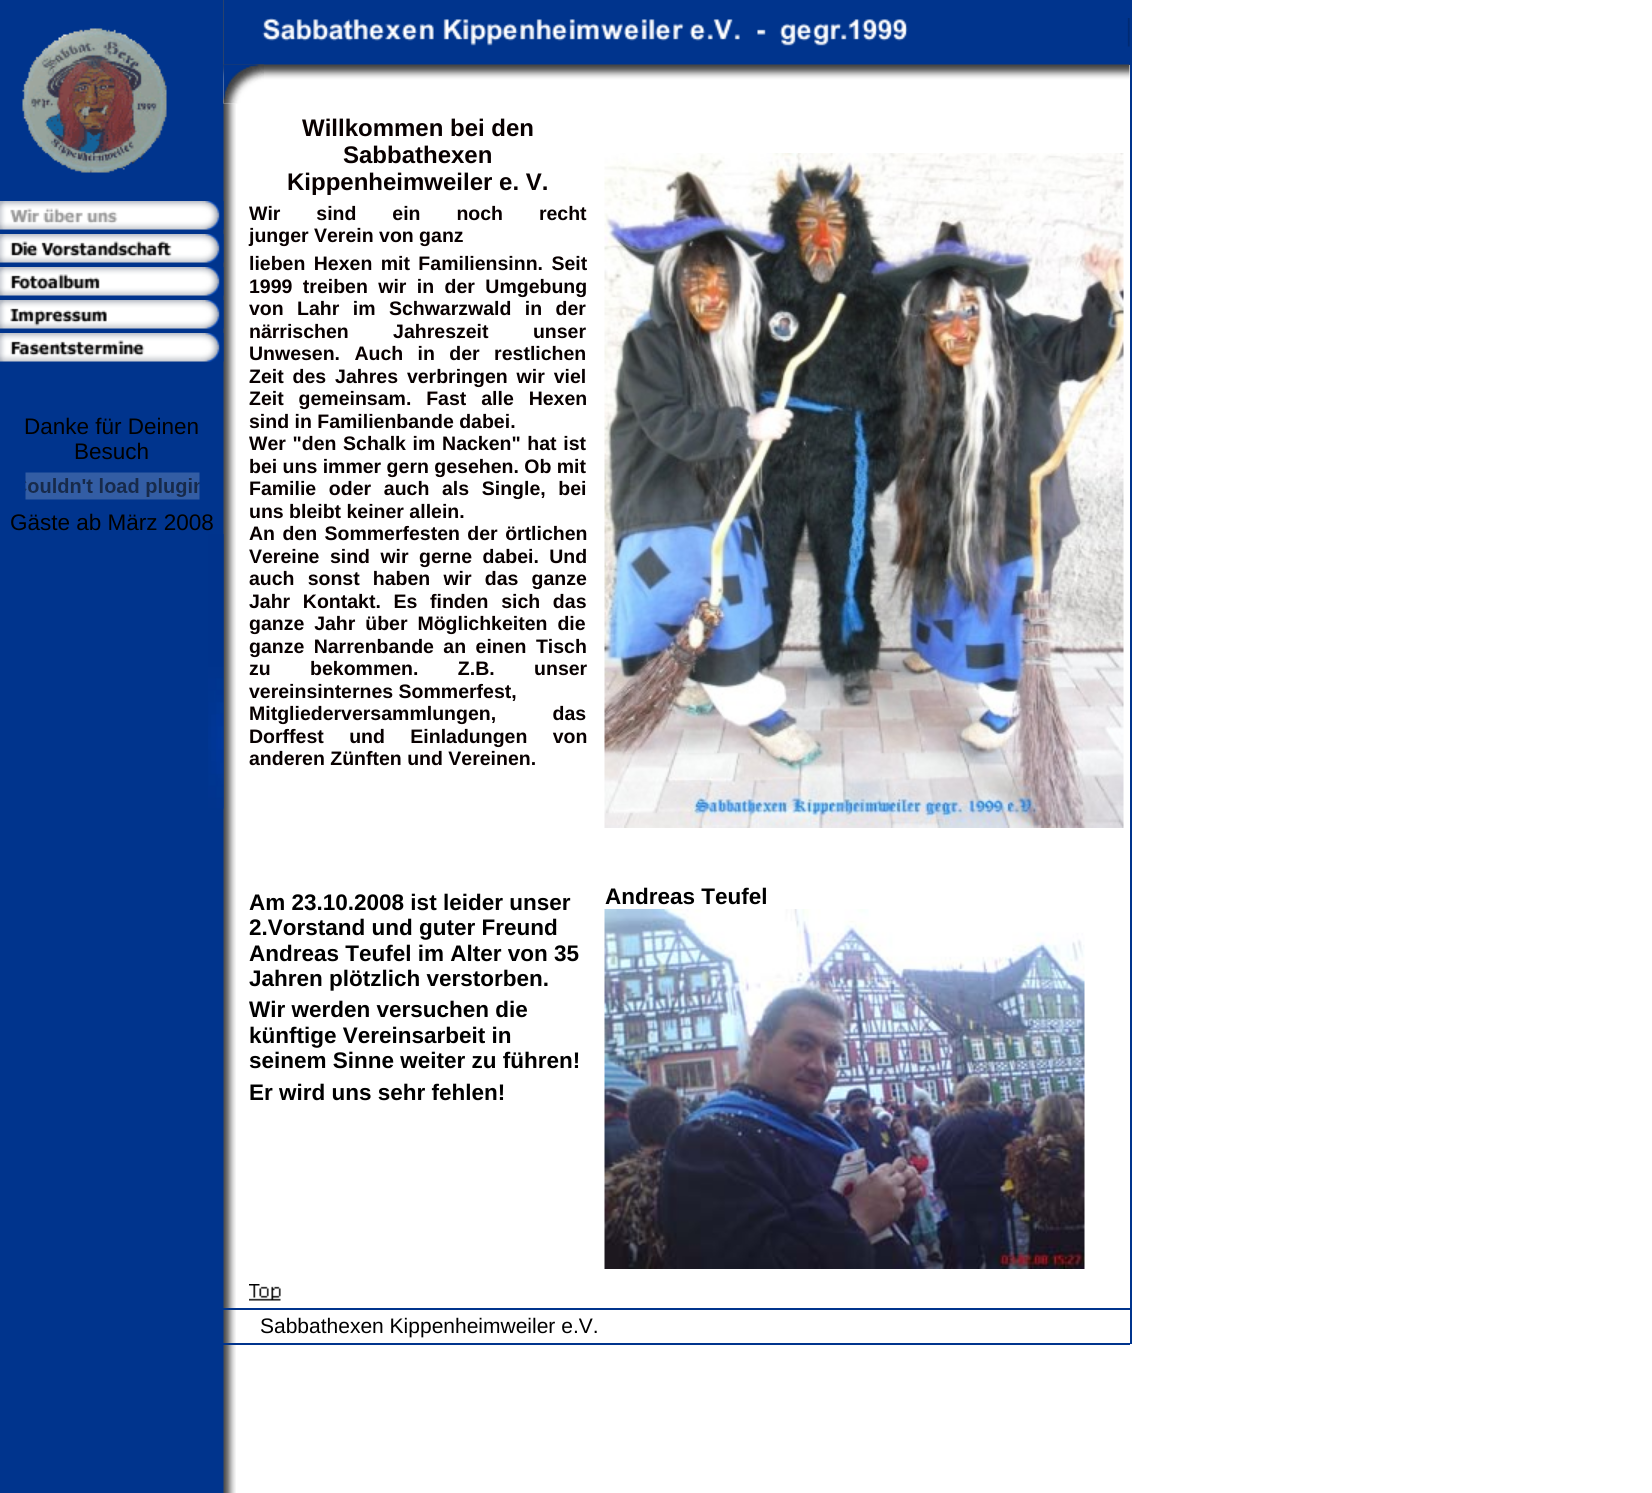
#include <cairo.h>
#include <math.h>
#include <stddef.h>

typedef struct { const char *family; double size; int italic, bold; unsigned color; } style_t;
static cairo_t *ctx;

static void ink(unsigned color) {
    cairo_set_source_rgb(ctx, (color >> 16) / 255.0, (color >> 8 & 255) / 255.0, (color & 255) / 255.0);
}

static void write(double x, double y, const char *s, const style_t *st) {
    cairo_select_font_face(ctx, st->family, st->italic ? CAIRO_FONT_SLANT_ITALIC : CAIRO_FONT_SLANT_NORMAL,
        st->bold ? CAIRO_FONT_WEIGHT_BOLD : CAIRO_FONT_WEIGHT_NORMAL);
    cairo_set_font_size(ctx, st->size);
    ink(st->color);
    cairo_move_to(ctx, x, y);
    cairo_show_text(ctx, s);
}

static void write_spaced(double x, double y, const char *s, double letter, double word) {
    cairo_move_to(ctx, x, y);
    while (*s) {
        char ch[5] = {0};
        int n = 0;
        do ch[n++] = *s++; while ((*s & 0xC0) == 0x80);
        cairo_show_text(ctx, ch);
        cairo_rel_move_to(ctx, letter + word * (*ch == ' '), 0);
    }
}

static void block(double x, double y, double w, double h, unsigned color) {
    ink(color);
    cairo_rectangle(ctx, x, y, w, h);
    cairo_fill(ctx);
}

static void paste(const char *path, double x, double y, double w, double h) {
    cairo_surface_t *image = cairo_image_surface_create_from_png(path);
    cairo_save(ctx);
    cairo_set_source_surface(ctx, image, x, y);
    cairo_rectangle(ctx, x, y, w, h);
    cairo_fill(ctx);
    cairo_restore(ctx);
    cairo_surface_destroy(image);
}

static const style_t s1 = {"Liberation Sans", 22.5, 0, 0, 0x000000};
static const style_t s2 = {"Liberation Sans", 24, 0, 1, 0x080000};
static const style_t s3 = {"Liberation Sans", 19.5, 0, 1, 0x080000};
static const style_t s4 = {"Liberation Sans", 22.5, 0, 1, 0x000000};
static const style_t s5 = {"Liberation Sans", 21, 0, 0, 0x000000};

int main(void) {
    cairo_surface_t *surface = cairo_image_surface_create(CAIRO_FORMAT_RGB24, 1652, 1493);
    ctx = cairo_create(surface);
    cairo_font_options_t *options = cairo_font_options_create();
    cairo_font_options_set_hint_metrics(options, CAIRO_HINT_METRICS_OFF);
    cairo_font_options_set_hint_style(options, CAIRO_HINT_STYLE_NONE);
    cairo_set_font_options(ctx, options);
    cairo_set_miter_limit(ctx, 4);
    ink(0xffffff);
    cairo_paint(ctx);
    paste("pic1.png", 0, 1345, 236, 148);
    paste("pic2.png", 0, 0, 236, 1343);
    paste("pic3.png", 22, 28, 145, 145);
    paste("pic4.png", 0, 201, 224, 29);
    paste("pic5.png", 0, 234, 224, 29);
    paste("pic6.png", 0, 267, 224, 29);
    paste("pic7.png", 0, 300, 224, 29);
    paste("pic8.png", 0, 333, 224, 29);
    write(24, 434, "Danke für Deinen", &s1);
    write(74, 459, "Besuch", &s1);
    paste("pic9.png", 25, 472, 175, 28);
    write(10, 530, "Gäste ab März 2008", &s1);
    paste("pic10.png", 208, 534, 16, 275);
    block(224, 0, 906, 65, 0x00348d);
    paste("pic11.png", 262, 18, 868, 29);
    paste("pic12.png", 223, 64, 907, 40);
    paste("pic13.png", 223, 64, 41, 40);
    write(302, 136, "Willkommen bei den", &s2);
    write(343, 163, "Sabbathexen", &s2);
    write(287, 190, "Kippenheimweiler e. V.", &s2);
    cairo_set_font_size(ctx, 19.5);
    write_spaced(249, 220, "Wir sind ein noch recht", 0, 30.5);
    write(249, 242, "junger Verein von ganz", &s3);
    write_spaced(249, 270, "lieben Hexen mit Familiensinn. Seit", 0, 3);
    write_spaced(249, 293, "1999 treiben wir in der Umgebung", 0, 5);
    write_spaced(249, 315, "von Lahr im Schwarzwald in der", 0, 8);
    write_spaced(249, 338, "närrischen Jahreszeit unser", 0, 39);
    write_spaced(249, 360, "Unwesen. Auch in der restlichen", 0, 9);
    write_spaced(249, 383, "Zeit des Jahres verbringen wir viel", 0, 3.5);
    write_spaced(249, 405, "Zeit gemeinsam. Fast alle Hexen", 0, 9.5);
    write(249, 428, "sind in Familienbande dabei.", &s3);
    write_spaced(249, 450, "Wer \"den Schalk im Nacken\" hat ist", 0, 1.25);
    write(249, 473, "bei uns immer gern gesehen. Ob mit", &s3);
    write_spaced(249, 495, "Familie oder auch als Single, bei", 0, 7.25);
    write(249, 518, "uns bleibt keiner allein.", &s3);
    write_spaced(249, 540, "An den Sommerfesten der örtlichen", 0, 2);
    write_spaced(249, 563, "Vereine sind wir gerne dabei. Und", 0, 5);
    write_spaced(249, 585, "auch sonst haben wir das ganze", 0, 7.75);
    write_spaced(249, 608, "Jahr Kontakt. Es finden sich das", 0, 7.25);
    write_spaced(249, 630, "ganze Jahr über Möglichkeiten die", 0, 4.5);
    write_spaced(249, 653, "ganze Narrenbande an einen Tisch", 0, 4);
    write_spaced(249, 675, "zu bekommen. Z.B. unser", 0, 34);
    write(249, 698, "vereinsinternes Sommerfest,", &s3);
    write_spaced(249, 720, "Mitgliederversammlungen, das", 0, 51);
    write_spaced(249, 743, "Dorffest und Einladungen von", 0, 20);
    write(249, 765, "anderen Zünften und Vereinen.", &s3);
    paste("pic14.png", 604, 153, 520, 675);
    write(249, 910, "Am 23.10.2008 ist leider unser", &s4);
    write(249, 935, "2.Vorstand und guter Freund", &s4);
    write(249, 961, "Andreas Teufel im Alter von 35", &s4);
    write(249, 986, "Jahren plötzlich verstorben.", &s4);
    write(249, 1017, "Wir werden versuchen die", &s4);
    write(249, 1043, "künftige Vereinsarbeit in", &s4);
    write(249, 1068, "seinem Sinne weiter zu führen!", &s4);
    write(249, 1100, "Er wird uns sehr fehlen!", &s4);
    write(605, 904, "Andreas Teufel", &s4);
    paste("pic15.png", 604, 909, 481, 360);
    block(1130, 0, 2, 1344, 0x00348d);
    paste("pic16.png", 249, 1284, 32, 17);
    block(223, 1308, 907, 2, 0x00348d);
    write(260, 1333, "Sabbathexen Kippenheimweiler e.V.", &s5);
    block(0, 1343, 1130, 2, 0x00348d);
    cairo_surface_write_to_png(surface, "screenshot.png");
    cairo_font_options_destroy(options);
    cairo_destroy(ctx);
    cairo_surface_destroy(surface);
    return 0;
}
